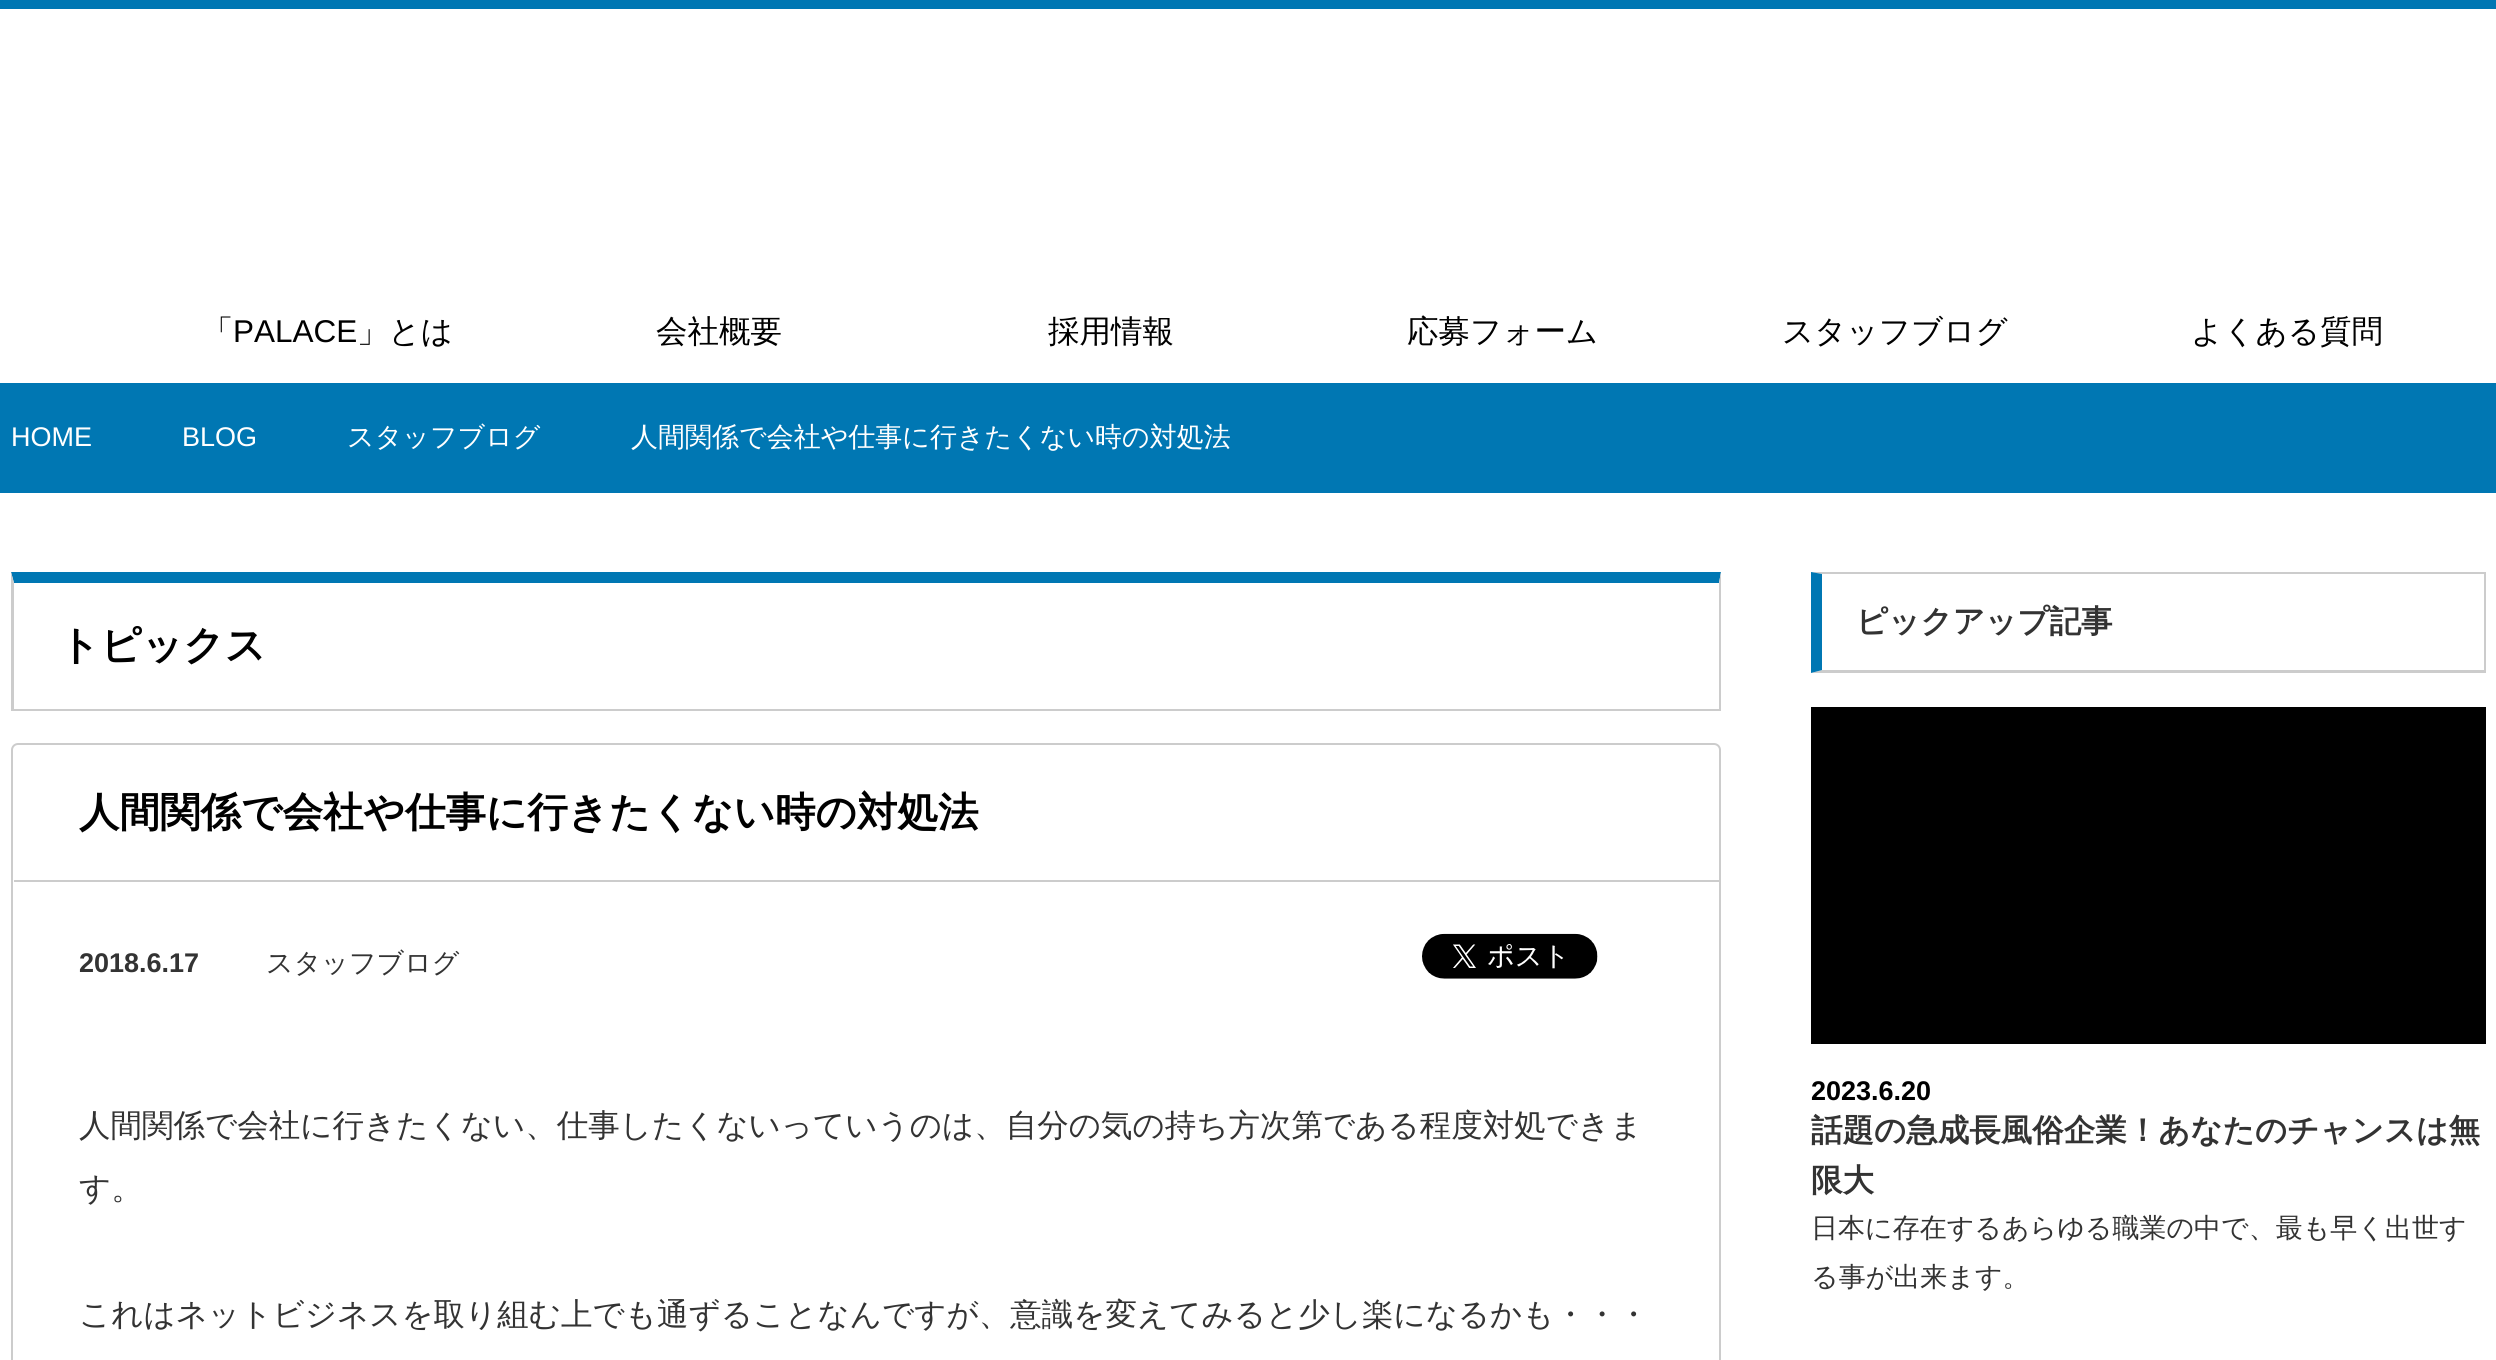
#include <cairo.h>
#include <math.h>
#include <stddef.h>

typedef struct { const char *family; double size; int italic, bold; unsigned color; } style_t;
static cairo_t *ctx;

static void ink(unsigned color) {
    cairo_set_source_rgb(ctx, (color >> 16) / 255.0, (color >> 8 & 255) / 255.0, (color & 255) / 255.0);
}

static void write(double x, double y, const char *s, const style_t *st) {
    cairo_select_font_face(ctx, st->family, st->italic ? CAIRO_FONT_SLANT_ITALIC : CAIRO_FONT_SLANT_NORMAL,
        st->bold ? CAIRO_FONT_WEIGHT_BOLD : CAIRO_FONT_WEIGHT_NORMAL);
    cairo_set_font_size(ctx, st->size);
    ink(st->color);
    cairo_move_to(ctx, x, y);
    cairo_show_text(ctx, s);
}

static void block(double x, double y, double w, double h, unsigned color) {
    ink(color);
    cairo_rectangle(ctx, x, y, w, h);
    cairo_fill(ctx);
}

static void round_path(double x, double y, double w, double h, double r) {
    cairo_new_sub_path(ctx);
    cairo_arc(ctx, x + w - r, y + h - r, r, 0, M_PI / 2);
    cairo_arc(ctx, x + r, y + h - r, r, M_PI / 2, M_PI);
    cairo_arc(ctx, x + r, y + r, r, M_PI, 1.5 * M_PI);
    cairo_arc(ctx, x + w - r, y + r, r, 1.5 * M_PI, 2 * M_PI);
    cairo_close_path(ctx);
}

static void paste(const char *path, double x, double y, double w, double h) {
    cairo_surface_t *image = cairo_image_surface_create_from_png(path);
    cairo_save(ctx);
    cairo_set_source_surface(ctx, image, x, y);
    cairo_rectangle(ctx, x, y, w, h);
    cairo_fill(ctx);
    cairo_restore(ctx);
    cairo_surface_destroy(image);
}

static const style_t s1 = {"WenQuanYi Zen Hei Medium", 31.5, 0, 0, 0x000000};
static const style_t s2 = {"Liberation Sans", 31.5, 0, 0, 0x000000};
static const style_t s3 = {"Liberation Sans", 27, 0, 0, 0xffffff};
static const style_t s4 = {"WenQuanYi Zen Hei Medium", 27, 0, 0, 0xffffff};
static const style_t s5 = {"WenQuanYi Zen Hei", 40.5, 0, 1, 0x000000};
static const style_t s6 = {"Liberation Sans", 27, 0, 1, 0x333333};
static const style_t s7 = {"WenQuanYi Zen Hei Medium", 27, 0, 0, 0x333333};
static const style_t s8 = {"WenQuanYi Zen Hei Medium", 31.5, 0, 0, 0x333333};
static const style_t s9 = {"WenQuanYi Zen Hei", 31.5, 0, 1, 0x333333};
static const style_t s10 = {"Liberation Sans", 27, 0, 1, 0x000000};

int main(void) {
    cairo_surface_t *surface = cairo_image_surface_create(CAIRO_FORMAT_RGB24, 2496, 1360);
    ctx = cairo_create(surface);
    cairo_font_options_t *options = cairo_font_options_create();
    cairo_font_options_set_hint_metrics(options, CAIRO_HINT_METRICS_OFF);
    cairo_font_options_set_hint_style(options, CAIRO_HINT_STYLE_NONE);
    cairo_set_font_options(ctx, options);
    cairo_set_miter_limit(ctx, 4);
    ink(0xffffff);
    cairo_paint(ctx);
    block(0, 0, 2496, 9, 0x0077b3);
    write(202, 342, "「", &s1);
    write(233, 342, "PALACE", &s2);
    write(357, 342, "」とは", &s1);
    write(656, 342, "会社概要", &s1);
    write(1048, 342, "採用情報", &s1);
    write(1407, 342, "応募フォーム", &s1);
    write(1782, 342, "スタッフブログ", &s1);
    write(2191, 342, "よくある質問", &s1);
    block(0, 383, 2496, 110, 0x0077b3);
    write(11, 446, "HOME", &s3);
    write(182, 446, "BLOG", &s3);
    write(347, 446, "スタッフブログ", &s4);
    write(631, 446, "人間関係で会社や仕事に行きたくない時の対処法", &s4);
    ink(0x0077b3);
    cairo_new_path(ctx);
    cairo_move_to(ctx, 11, 572);
    cairo_line_to(ctx, 1721, 572);
    cairo_line_to(ctx, 1719, 583);
    cairo_line_to(ctx, 14, 583);
    cairo_close_path(ctx);
    cairo_fill(ctx);
    ink(0xcccccc);
    cairo_new_path(ctx);
    cairo_move_to(ctx, 1721, 572);
    cairo_line_to(ctx, 1721, 711);
    cairo_line_to(ctx, 1719, 709);
    cairo_line_to(ctx, 1719, 583);
    cairo_close_path(ctx);
    cairo_fill(ctx);
    block(11, 709, 1710, 2, 0xcccccc);
    cairo_new_path(ctx);
    cairo_move_to(ctx, 11, 711);
    cairo_line_to(ctx, 11, 572);
    cairo_line_to(ctx, 14, 583);
    cairo_line_to(ctx, 14, 709);
    cairo_close_path(ctx);
    cairo_fill(ctx);
    write(59, 659, "トピックス", &s5);
    round_path(12, 744, 1708, 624, 6);
    ink(0xcccccc);
    cairo_stroke(ctx);
    block(14, 880, 1705, 2, 0xcccccc);
    write(79, 826, "人間関係で会社や仕事に行きたくない時の対処法", &s5);
    write(79, 972, "2018.6.17", &s6);
    write(266, 972, "スタッフブログ", &s7);
    paste("pic1.png", 1422, 933, 176, 46);
    write(79, 1136, "人間関係で会社に行きたくない、仕事したくないっていうのは、自分の気の持ち方次第である程度対処できま", &s8);
    write(79, 1199, "す。", &s8);
    write(79, 1325, "これはネットビジネスを取り組む上でも通ずることなんですが、意識を変えてみると少し楽になるかも・・・", &s8);
    ink(0xcccccc);
    cairo_new_path(ctx);
    cairo_move_to(ctx, 1811, 572);
    cairo_line_to(ctx, 2486, 572);
    cairo_line_to(ctx, 2484, 574);
    cairo_line_to(ctx, 1822, 574);
    cairo_close_path(ctx);
    cairo_fill(ctx);
    block(2484, 572, 2, 101, 0xcccccc);
    cairo_new_path(ctx);
    cairo_move_to(ctx, 2486, 673);
    cairo_line_to(ctx, 1811, 673);
    cairo_line_to(ctx, 1822, 670);
    cairo_line_to(ctx, 2484, 670);
    cairo_close_path(ctx);
    cairo_fill(ctx);
    ink(0x0077b3);
    cairo_new_path(ctx);
    cairo_move_to(ctx, 1811, 673);
    cairo_line_to(ctx, 1811, 572);
    cairo_line_to(ctx, 1822, 574);
    cairo_line_to(ctx, 1822, 670);
    cairo_close_path(ctx);
    cairo_fill(ctx);
    write(1856, 632, "ピックアップ記事", &s9);
    block(1811, 707, 675, 337, 0x000000);
    write(1811, 1100, "2023.6.20", &s10);
    write(1811, 1141, "話題の急成長風俗企業！あなたのチャンスは無", &s9);
    write(1811, 1191, "限大", &s9);
    write(1811, 1237, "日本に存在するあらゆる職業の中で、最も早く出世す", &s7);
    write(1811, 1286, "る事が出来ます。", &s7);
    cairo_surface_write_to_png(surface, "screenshot.png");
    cairo_font_options_destroy(options);
    cairo_destroy(ctx);
    cairo_surface_destroy(surface);
    return 0;
}
